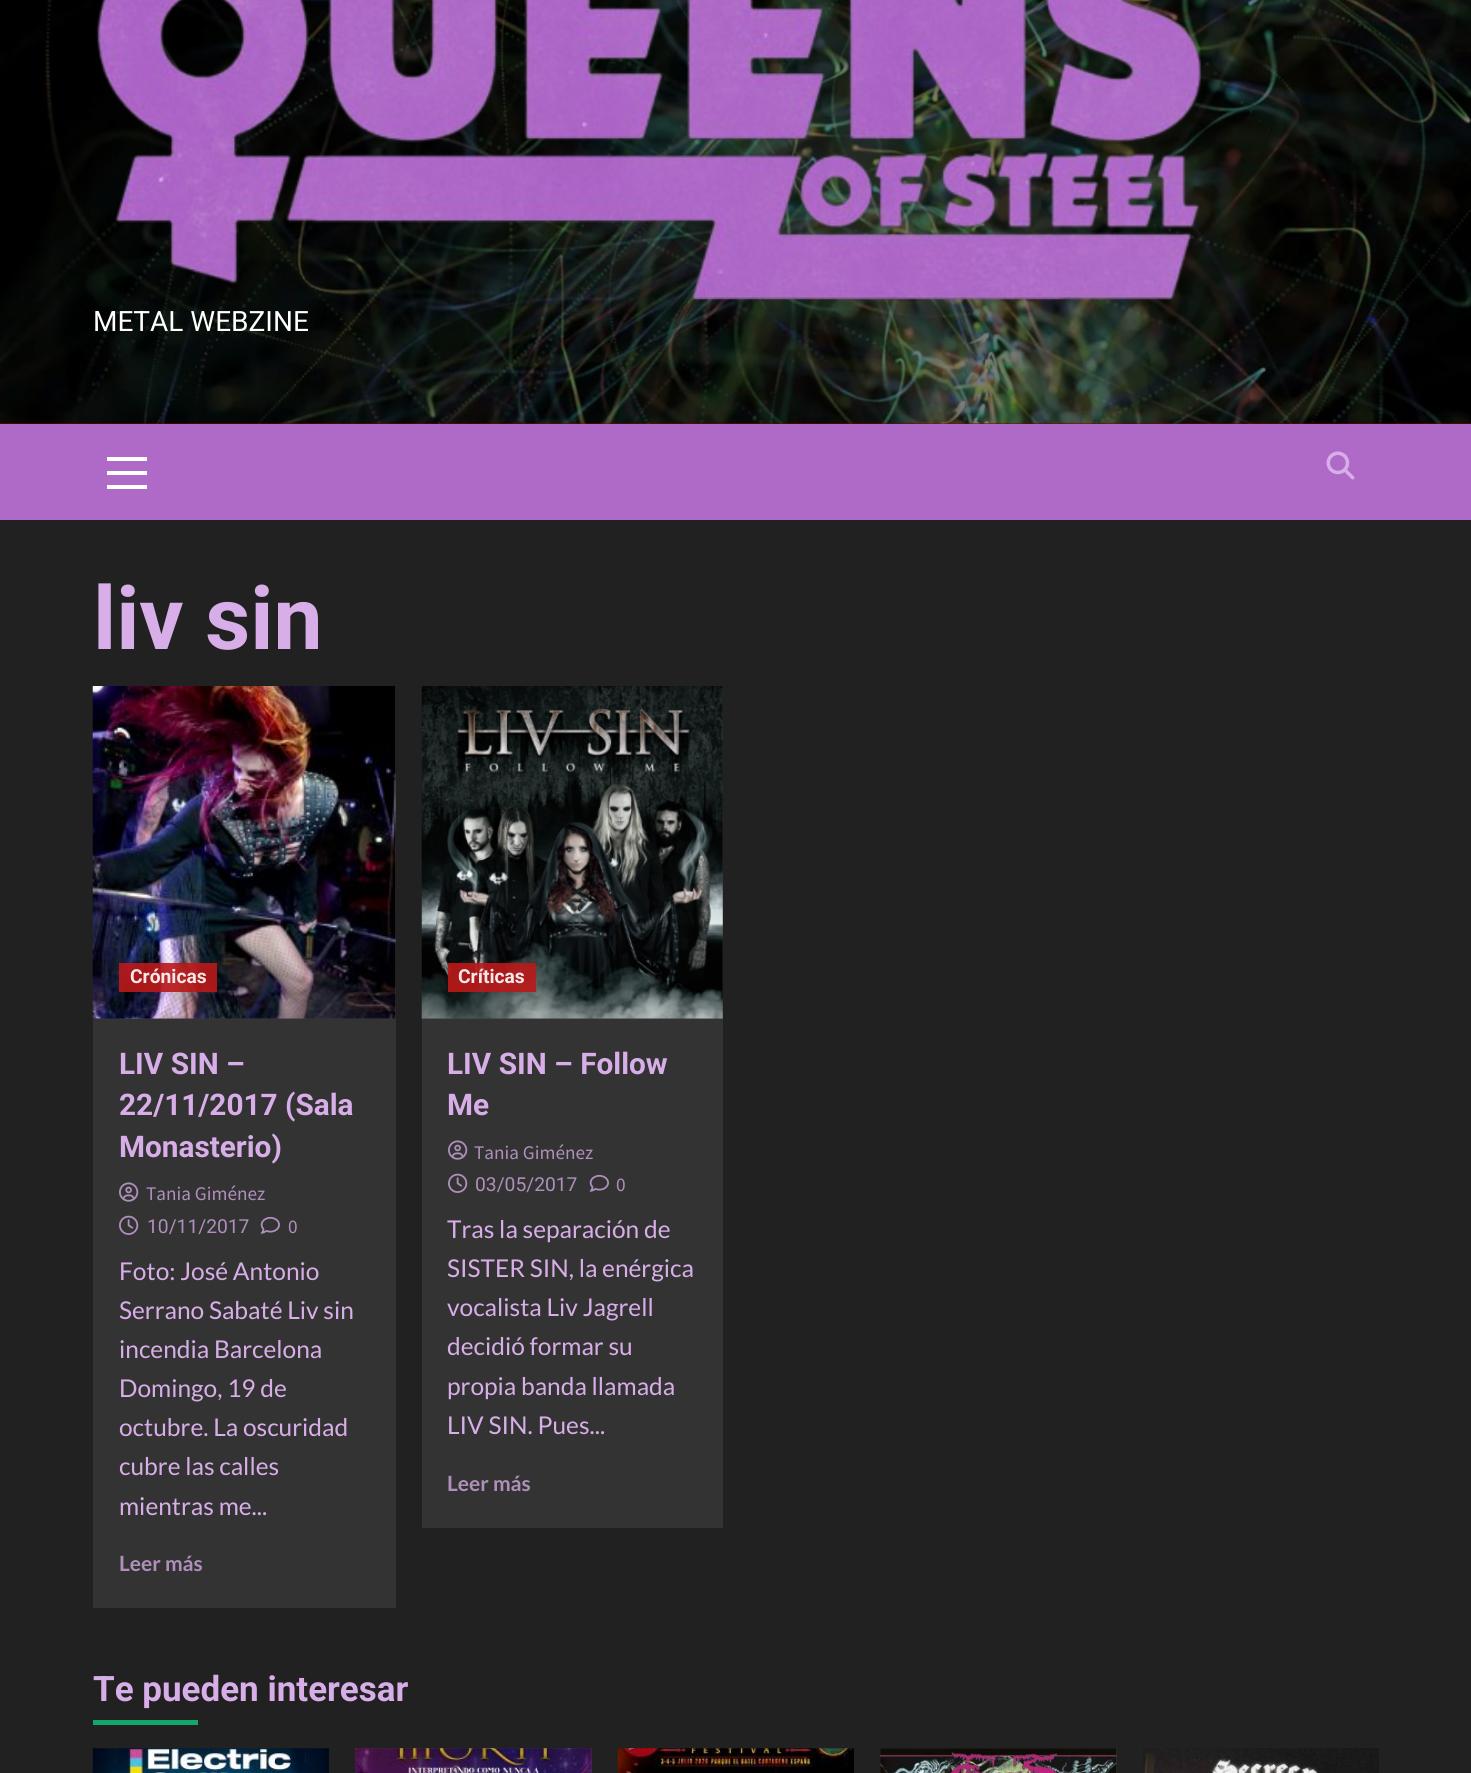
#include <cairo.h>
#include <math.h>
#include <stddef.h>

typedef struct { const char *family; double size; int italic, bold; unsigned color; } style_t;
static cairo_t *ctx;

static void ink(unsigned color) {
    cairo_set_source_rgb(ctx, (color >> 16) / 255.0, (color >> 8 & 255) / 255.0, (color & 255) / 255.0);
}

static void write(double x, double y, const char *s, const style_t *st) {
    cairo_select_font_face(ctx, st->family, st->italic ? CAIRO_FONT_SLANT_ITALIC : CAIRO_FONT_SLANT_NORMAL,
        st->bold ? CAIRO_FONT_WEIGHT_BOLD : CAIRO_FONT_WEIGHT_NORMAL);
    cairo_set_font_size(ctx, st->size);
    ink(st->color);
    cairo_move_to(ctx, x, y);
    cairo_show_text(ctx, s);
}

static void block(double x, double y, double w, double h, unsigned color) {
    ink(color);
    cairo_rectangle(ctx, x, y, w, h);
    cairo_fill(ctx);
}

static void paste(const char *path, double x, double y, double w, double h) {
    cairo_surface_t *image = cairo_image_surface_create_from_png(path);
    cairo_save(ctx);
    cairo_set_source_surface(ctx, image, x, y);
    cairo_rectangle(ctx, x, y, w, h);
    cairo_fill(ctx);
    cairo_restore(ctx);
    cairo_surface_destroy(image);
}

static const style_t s1 = {"Roboto", 28, 0, 0, 0xffffff};
static const style_t s2 = {"Roboto", 87.5, 0, 1, 0xd8aee8};
static const style_t s3 = {"Roboto", 19.25, 0, 1, 0xf7e9e9};
static const style_t s4 = {"Roboto", 29.75, 0, 1, 0xd8aee8};
static const style_t s5 = {"Source Sans Pro", 19.25, 0, 0, 0xaf8fbb};
static const style_t s6 = {"Roboto", 19.25, 0, 0, 0xaf8fbb};
static const style_t s7 = {"Lato", 24.5, 0, 0, 0xd8aee8};
static const style_t s8 = {"Lato", 21, 0, 1, 0xaf8fbb};
static const style_t s9 = {"Roboto", 35, 0, 1, 0xd8aee8};

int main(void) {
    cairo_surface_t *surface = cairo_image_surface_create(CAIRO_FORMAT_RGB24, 1471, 1773);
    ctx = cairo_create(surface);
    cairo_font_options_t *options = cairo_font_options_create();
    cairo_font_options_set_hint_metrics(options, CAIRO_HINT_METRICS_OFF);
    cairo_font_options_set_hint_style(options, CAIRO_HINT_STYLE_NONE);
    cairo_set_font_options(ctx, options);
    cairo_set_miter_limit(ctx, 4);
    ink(0x212121);
    cairo_paint(ctx);
    block(0, 423, 1471, 1, 0x800000);
    paste("pic1.png", 0, 0, 1471, 424);
    paste("pic2.png", 96, 0, 1106, 300);
    write(93, 331, "METAL WEBZINE", &s1);
    block(0, 424, 1471, 96, 0xaf6ac8);
    block(107, 471, 40, 4, 0xffffff);
    block(107, 457, 40, 4, 0xffffff);
    block(107, 485, 40, 4, 0xffffff);
    paste("pic3.png", 1326, 451, 29, 29);
    write(93, 649, "liv sin", &s2);
    block(93, 1019, 303, 589, 0x333333);
    block(93, 686, 303, 333, 0x3d3d3d);
    paste("pic4.png", 92, 686, 304, 333);
    cairo_set_source_rgba(ctx, 0.733, 0.098, 0.098, 0.9);
    cairo_rectangle(ctx, 119, 963, 98, 29);
    cairo_fill(ctx);
    write(130, 983, "Crónicas", &s3);
    write(119, 1074, "LIV SIN –", &s4);
    write(119, 1115, "22/11/2017 (Sala", &s4);
    write(119, 1157, "Monasterio)", &s4);
    paste("pic5.png", 119, 1182, 20, 20);
    write(146, 1200, "Tania Giménez", &s5);
    paste("pic6.png", 119, 1215, 20, 20);
    write(147, 1233, "10/11/2017", &s6);
    paste("pic7.png", 260, 1216, 20, 18);
    write(288, 1233, "0", &s5);
    write(119, 1280, "Foto: José Antonio", &s7);
    write(119, 1319, "Serrano Sabaté Liv sin", &s7);
    write(119, 1358, "incendia Barcelona", &s7);
    write(119, 1397, "Domingo, 19 de", &s7);
    write(119, 1436, "octubre. La oscuridad", &s7);
    write(119, 1475, "cubre las calles", &s7);
    write(119, 1515, "mientras me...", &s7);
    write(119, 1571, "Leer más", &s8);
    block(422, 1019, 301, 509, 0x333333);
    block(422, 686, 301, 333, 0x3d3d3d);
    paste("pic8.png", 421, 686, 302, 333);
    cairo_set_source_rgba(ctx, 0.733, 0.098, 0.098, 0.9);
    cairo_rectangle(ctx, 448, 963, 88, 29);
    cairo_fill(ctx);
    write(458, 983, "Críticas", &s3);
    write(447, 1074, "LIV SIN – Follow", &s4);
    write(447, 1115, "Me", &s4);
    paste("pic5.png", 448, 1140, 20, 20);
    write(474, 1159, "Tania Giménez", &s5);
    paste("pic6.png", 448, 1173, 20, 20);
    write(475, 1191, "03/05/2017", &s6);
    paste("pic7.png", 589, 1174, 20, 18);
    write(616, 1191, "0", &s5);
    write(447, 1238, "Tras la separación de", &s7);
    write(447, 1277, "SISTER SIN, la enérgica", &s7);
    write(447, 1316, "vocalista Liv Jagrell", &s7);
    write(447, 1355, "decidió formar su", &s7);
    write(447, 1395, "propia banda llamada", &s7);
    write(447, 1434, "LIV SIN. Pues...", &s7);
    write(447, 1491, "Leer más", &s8);
    write(93, 1701, "Te pueden interesar", &s9);
    block(93, 1720, 105, 5, 0x12a86b);
    paste("pic9.png", 92, 1748, 237, 25);
    block(355, 1748, 237, 25, 0x3d3d3d);
    paste("pic10.png", 355, 1748, 237, 25);
    paste("pic11.png", 617, 1748, 237, 25);
    block(880, 1748, 237, 25, 0x3d3d3d);
    paste("pic12.png", 880, 1748, 237, 25);
    paste("pic13.png", 1143, 1748, 236, 25);
    cairo_surface_write_to_png(surface, "screenshot.png");
    cairo_font_options_destroy(options);
    cairo_destroy(ctx);
    cairo_surface_destroy(surface);
    return 0;
}
